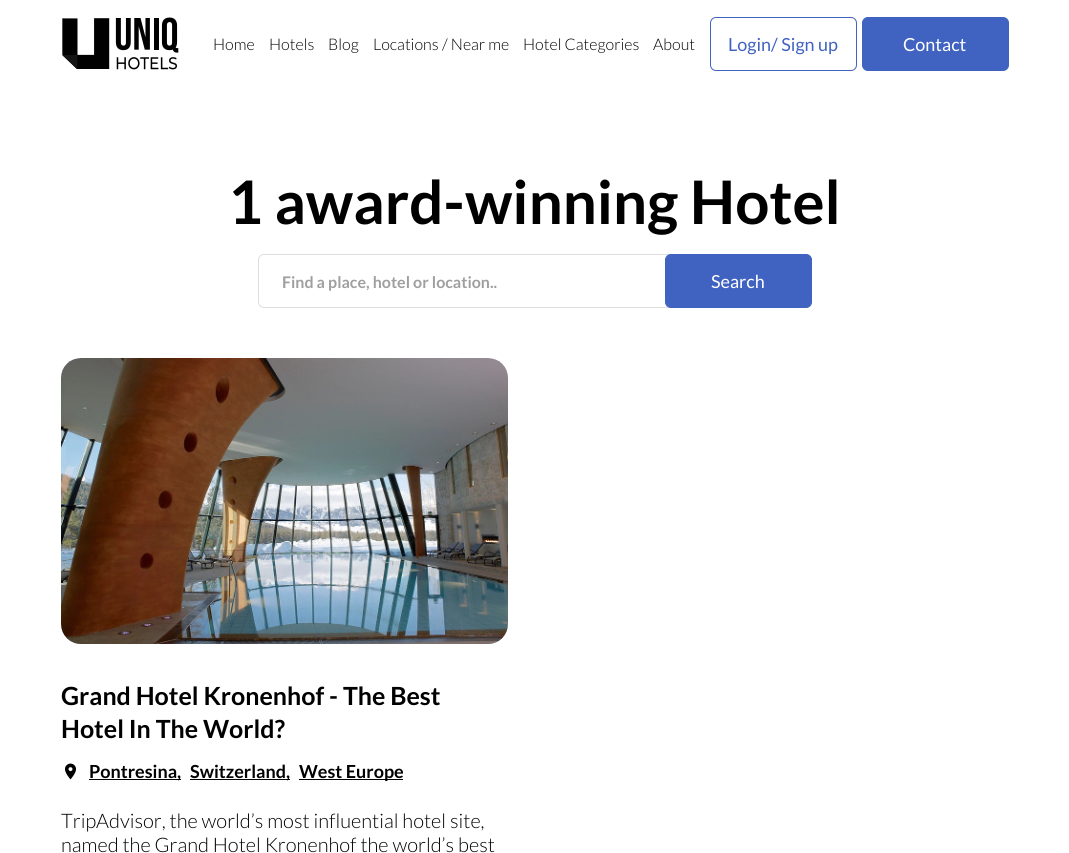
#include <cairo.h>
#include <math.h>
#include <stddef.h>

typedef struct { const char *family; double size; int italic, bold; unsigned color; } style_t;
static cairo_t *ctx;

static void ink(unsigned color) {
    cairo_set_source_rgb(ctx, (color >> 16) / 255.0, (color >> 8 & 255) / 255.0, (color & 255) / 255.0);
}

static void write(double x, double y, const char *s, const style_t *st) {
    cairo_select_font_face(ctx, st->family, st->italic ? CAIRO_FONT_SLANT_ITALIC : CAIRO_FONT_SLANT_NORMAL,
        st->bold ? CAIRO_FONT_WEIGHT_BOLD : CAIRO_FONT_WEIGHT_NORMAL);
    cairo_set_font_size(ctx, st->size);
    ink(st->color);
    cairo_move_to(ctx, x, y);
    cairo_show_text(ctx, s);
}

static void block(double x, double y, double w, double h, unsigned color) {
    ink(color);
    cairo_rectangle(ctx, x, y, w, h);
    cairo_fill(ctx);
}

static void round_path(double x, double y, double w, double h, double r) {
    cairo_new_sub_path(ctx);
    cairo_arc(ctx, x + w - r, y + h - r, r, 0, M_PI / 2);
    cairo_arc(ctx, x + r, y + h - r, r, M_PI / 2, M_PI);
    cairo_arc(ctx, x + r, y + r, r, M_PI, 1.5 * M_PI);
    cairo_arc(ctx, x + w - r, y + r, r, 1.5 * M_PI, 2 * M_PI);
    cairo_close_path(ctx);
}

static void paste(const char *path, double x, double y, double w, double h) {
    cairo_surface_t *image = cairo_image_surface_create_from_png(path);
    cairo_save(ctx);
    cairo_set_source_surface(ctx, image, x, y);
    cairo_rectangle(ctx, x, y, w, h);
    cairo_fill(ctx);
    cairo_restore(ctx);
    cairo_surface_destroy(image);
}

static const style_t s1 = {"Lato Light", 16, 0, 0, 0x000000};
static const style_t s2 = {"Lato", 18, 0, 0, 0x4063c1};
static const style_t s3 = {"Lato", 18, 0, 0, 0xffffff};
static const style_t s4 = {"Lato", 60, 0, 1, 0x000000};
static const style_t s5 = {"Lato", 16, 0, 1, 0x9f9f9f};
static const style_t s6 = {"Lato", 25, 0, 1, 0x000000};
static const style_t s7 = {"Lato", 18, 0, 1, 0x000000};
static const style_t s8 = {"Lato Light", 20, 0, 0, 0x000000};

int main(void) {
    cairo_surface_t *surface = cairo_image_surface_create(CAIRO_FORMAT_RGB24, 1069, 853);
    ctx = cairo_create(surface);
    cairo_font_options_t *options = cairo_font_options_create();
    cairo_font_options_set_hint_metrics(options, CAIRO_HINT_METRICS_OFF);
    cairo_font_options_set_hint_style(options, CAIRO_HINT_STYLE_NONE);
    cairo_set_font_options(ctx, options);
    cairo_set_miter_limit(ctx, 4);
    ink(0xffffff);
    cairo_paint(ctx);
    paste("pic1.png", 62, 17, 117, 53);
    write(213, 50, "Home", &s1);
    write(269, 50, "Hotels", &s1);
    write(328, 50, "Blog", &s1);
    write(373, 50, "Locations", &s1);
    write(442, 50, "/ Near me", &s1);
    write(523, 50, "Hotel Categories", &s1);
    write(653, 50, "About", &s1);
    round_path(710.5, 17.5, 146, 53, 5.5);
    ink(0x4063c1);
    cairo_set_line_width(ctx, 1);
    cairo_stroke(ctx);
    write(728, 51, "Login/ Sign up", &s2);
    round_path(862.5, 17.5, 146, 53, 5.5);
    cairo_fill_preserve(ctx);
    cairo_stroke(ctx);
    write(903, 51, "Contact", &s3);
    write(228, 224, "1 award-winning Hotel", &s4);
    round_path(258.5, 254.5, 553, 53, 5.5);
    ink(0xdedede);
    cairo_stroke(ctx);
    write(282, 288, "Find a place, hotel or location..", &s5);
    ink(0x4063c1);
    round_path(665.5, 254.5, 146, 53, 5.5);
    cairo_fill_preserve(ctx);
    cairo_stroke(ctx);
    write(711, 288, "Search", &s3);
    paste("pic2.png", 61, 358, 447, 286);
    write(61, 705, "Grand Hotel Kronenhof - The Best", &s6);
    write(61, 738, "Hotel In The World?", &s6);
    paste("pic3.png", 65, 763, 11, 17);
    block(89, 779, 92, 1, 0x000000);
    write(89, 778, "Pontresina,", &s7);
    block(190, 779, 100, 1, 0x000000);
    write(190, 778, "Switzerland,", &s7);
    block(299, 779, 104, 1, 0x000000);
    write(299, 778, "West Europe", &s7);
    write(61, 828, "TripAdvisor, the world’s most influential hotel site,", &s8);
    write(61, 852, "named the Grand Hotel Kronenhof the world’s best", &s8);
    cairo_surface_write_to_png(surface, "screenshot.png");
    cairo_font_options_destroy(options);
    cairo_destroy(ctx);
    cairo_surface_destroy(surface);
    return 0;
}
